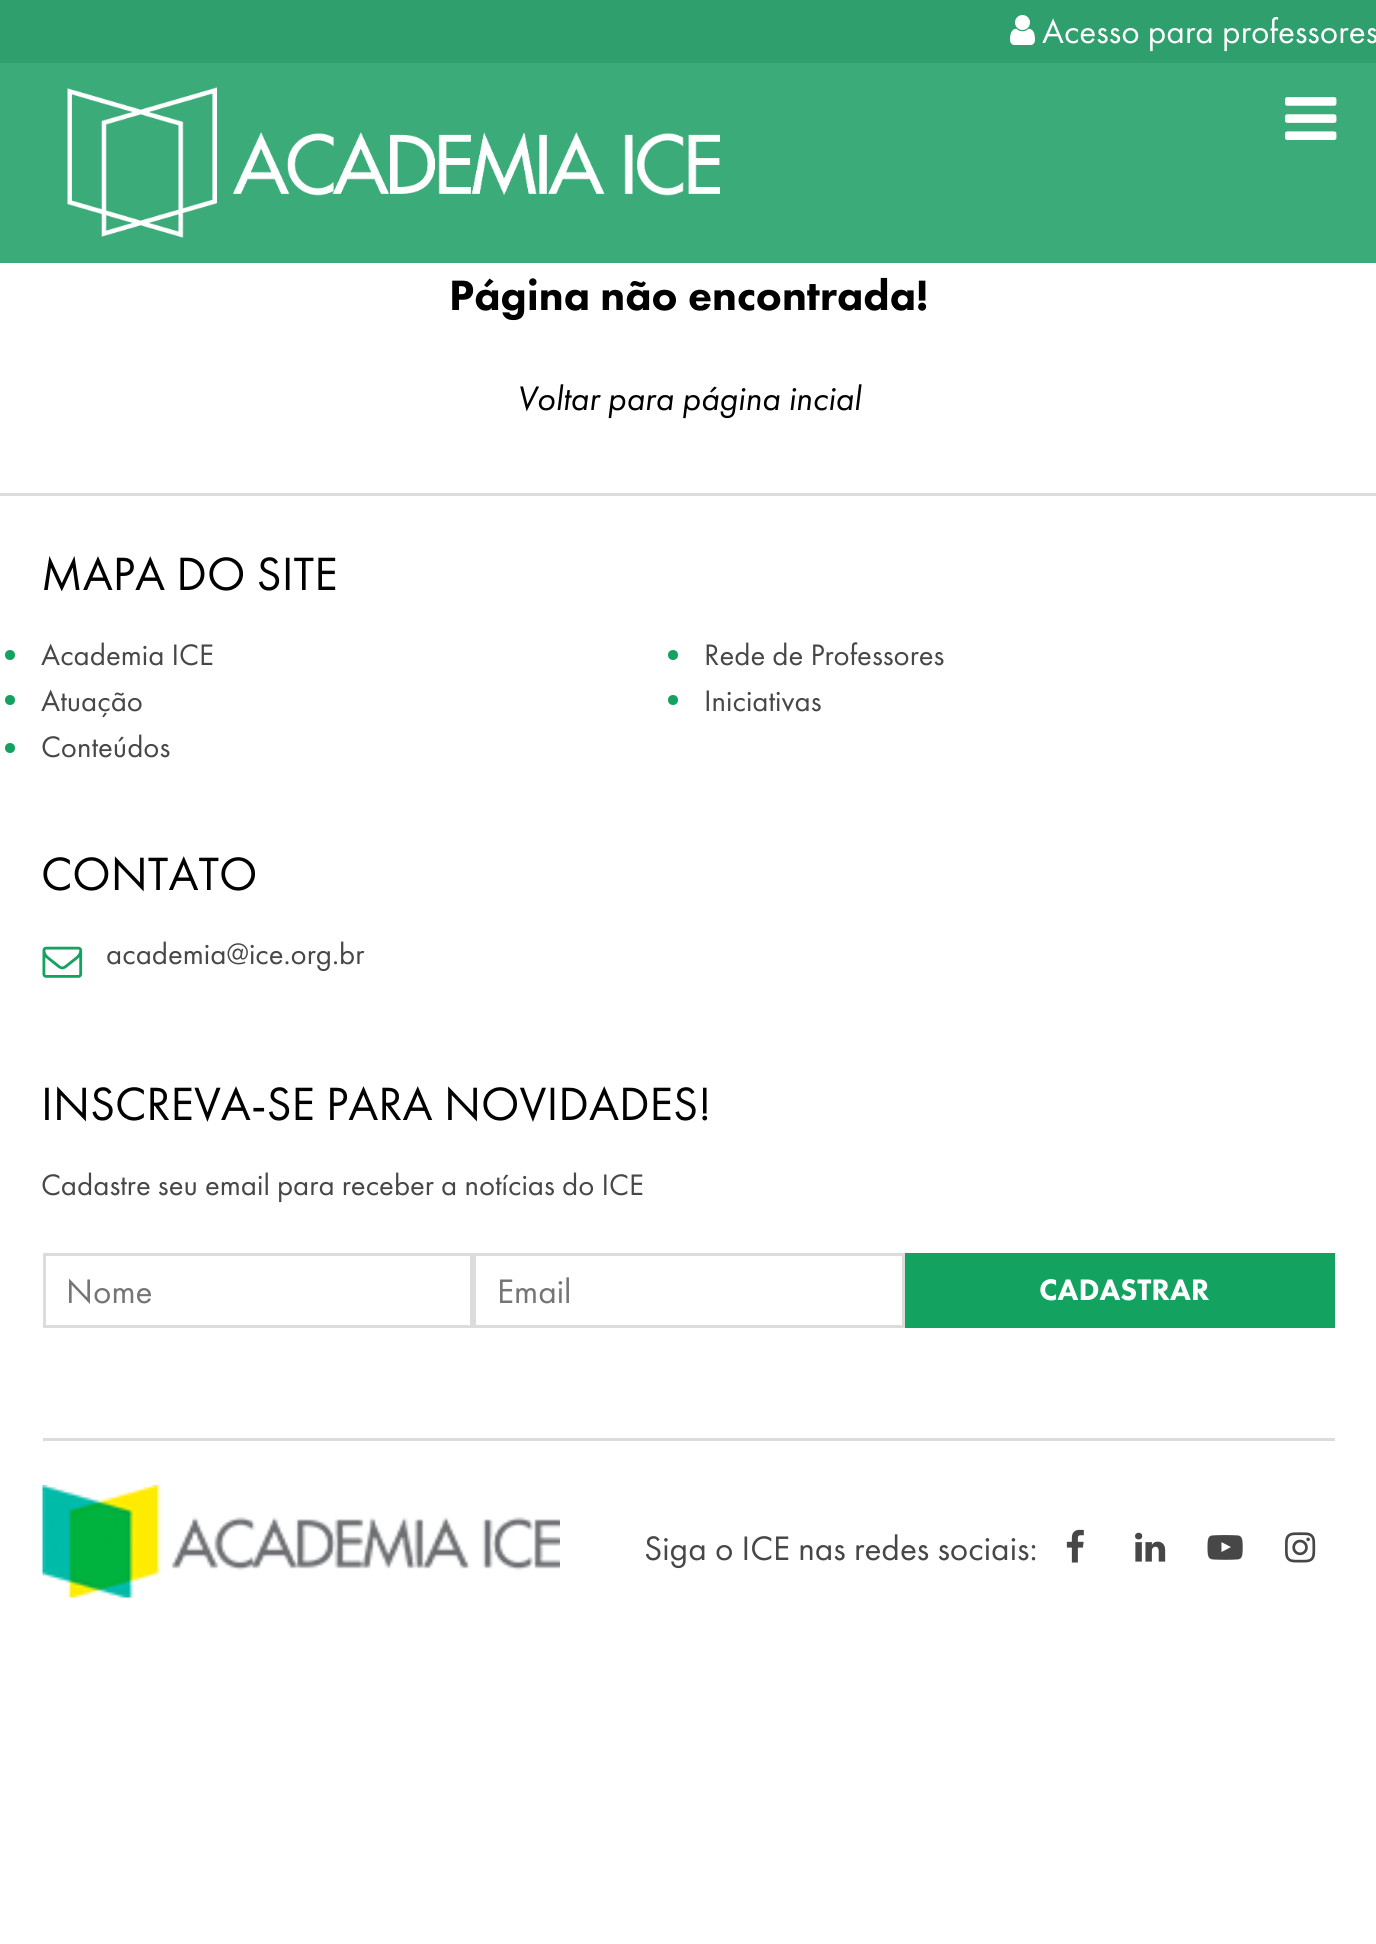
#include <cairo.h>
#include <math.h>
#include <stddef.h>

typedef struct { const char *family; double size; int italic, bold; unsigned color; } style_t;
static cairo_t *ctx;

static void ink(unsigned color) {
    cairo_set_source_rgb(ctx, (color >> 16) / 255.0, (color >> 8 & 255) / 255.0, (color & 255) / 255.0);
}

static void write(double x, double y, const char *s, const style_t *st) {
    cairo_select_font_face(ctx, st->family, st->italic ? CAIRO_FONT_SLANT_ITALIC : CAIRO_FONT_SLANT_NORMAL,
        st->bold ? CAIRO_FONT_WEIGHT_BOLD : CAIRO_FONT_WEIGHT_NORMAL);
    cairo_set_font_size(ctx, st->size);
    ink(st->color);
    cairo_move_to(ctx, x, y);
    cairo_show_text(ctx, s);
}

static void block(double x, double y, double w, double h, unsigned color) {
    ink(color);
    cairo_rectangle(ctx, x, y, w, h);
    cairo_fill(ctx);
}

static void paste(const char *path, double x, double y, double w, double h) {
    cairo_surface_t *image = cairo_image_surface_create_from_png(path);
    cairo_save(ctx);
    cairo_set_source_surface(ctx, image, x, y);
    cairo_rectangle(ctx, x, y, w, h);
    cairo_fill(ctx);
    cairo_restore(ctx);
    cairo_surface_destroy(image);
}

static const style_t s1 = {"Futura PT", 35.25, 0, 0, 0xffffff};
static const style_t s2 = {"Futura PT Black", 44, 0, 0, 0x000000};
static const style_t s3 = {"Futura PT", 35.25, 1, 0, 0x000000};
static const style_t s4 = {"Futura PT", 48.4, 0, 0, 0x000000};
static const style_t s5 = {"Futura PT", 30.75, 0, 0, 0x474747};
static const style_t s6 = {"Futura PT", 35.25, 0, 0, 0x757575};
static const style_t s7 = {"Futura PT Black", 30.75, 0, 0, 0xffffff};
static const style_t s8 = {"Futura PT", 35.25, 0, 0, 0x474747};

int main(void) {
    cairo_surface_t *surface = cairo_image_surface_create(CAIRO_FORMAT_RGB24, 1376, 1944);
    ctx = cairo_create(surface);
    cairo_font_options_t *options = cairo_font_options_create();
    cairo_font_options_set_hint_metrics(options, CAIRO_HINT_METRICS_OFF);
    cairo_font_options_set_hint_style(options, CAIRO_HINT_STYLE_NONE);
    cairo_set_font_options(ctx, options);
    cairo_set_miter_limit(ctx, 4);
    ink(0xffffff);
    cairo_paint(ctx);
    block(0, 0, 1376, 63, 0x2f9f6d);
    paste("pic1.png", 1010, 15, 25, 30);
    write(1042, 43, "Acesso para professores", &s1);
    block(0, 63, 1376, 200, 0x3bab79);
    paste("pic2.png", 67, 87, 653, 151);
    paste("pic3.png", 1285, 97, 52, 43);
    write(449, 310, "Página não encontrada!", &s2);
    write(517, 410, "Voltar para página incial", &s3);
    block(0, 493, 1376, 3, 0xdcdcdc);
    write(41, 590, "MAPA DO SITE", &s4);
    ink(0x13a260);
    cairo_new_path(ctx);
    cairo_arc(ctx, 10, 655, 5, 0, 2 * M_PI);
    cairo_fill(ctx);
    write(41, 665, "Academia ICE", &s5);
    ink(0x13a260);
    cairo_new_path(ctx);
    cairo_arc(ctx, 673, 655, 5, 0, 2 * M_PI);
    cairo_fill(ctx);
    write(704, 665, "Rede de Professores", &s5);
    ink(0x13a260);
    cairo_new_path(ctx);
    cairo_arc(ctx, 10, 700, 5, 0, 2 * M_PI);
    cairo_fill(ctx);
    write(41, 711, "Atuação", &s5);
    ink(0x13a260);
    cairo_new_path(ctx);
    cairo_arc(ctx, 673, 700, 5, 0, 2 * M_PI);
    cairo_fill(ctx);
    write(704, 711, "Iniciativas", &s5);
    ink(0x13a260);
    cairo_new_path(ctx);
    cairo_arc(ctx, 10, 748, 5, 0, 2 * M_PI);
    cairo_fill(ctx);
    write(41, 757, "Conteúdos", &s5);
    write(41, 890, "CONTATO", &s4);
    paste("pic4.png", 42, 946, 41, 32);
    write(106, 964, "academia@ice.org.br", &s5);
    write(41, 1120, "INSCREVA-SE PARA NOVIDADES!", &s4);
    write(41, 1195, "Cadastre seu email para receber a notícias do ICE", &s5);
    cairo_rectangle(ctx, 44.5, 1254.5, 427, 72);
    ink(0xdcdcdc);
    cairo_set_line_width(ctx, 3);
    cairo_stroke(ctx);
    write(66, 1303, "Nome", &s6);
    cairo_rectangle(ctx, 474.5, 1254.5, 429, 72);
    ink(0xdcdcdc);
    cairo_stroke(ctx);
    write(497, 1303, "Email", &s6);
    block(905, 1253, 430, 75, 0x13a260);
    write(1039, 1300, "CADASTRAR", &s7);
    block(43, 1438, 1292, 3, 0xdcdcdc);
    paste("pic5.png", 42, 1485, 518, 113);
    write(644, 1560, "Siga o ICE nas redes sociais:", &s8);
    paste("pic6.png", 1066, 1529, 18, 34);
    paste("pic7.png", 1135, 1532, 31, 30);
    paste("pic8.png", 1207, 1535, 36, 25);
    paste("pic9.png", 1285, 1532, 31, 31);
    cairo_surface_write_to_png(surface, "screenshot.png");
    cairo_font_options_destroy(options);
    cairo_destroy(ctx);
    cairo_surface_destroy(surface);
    return 0;
}
